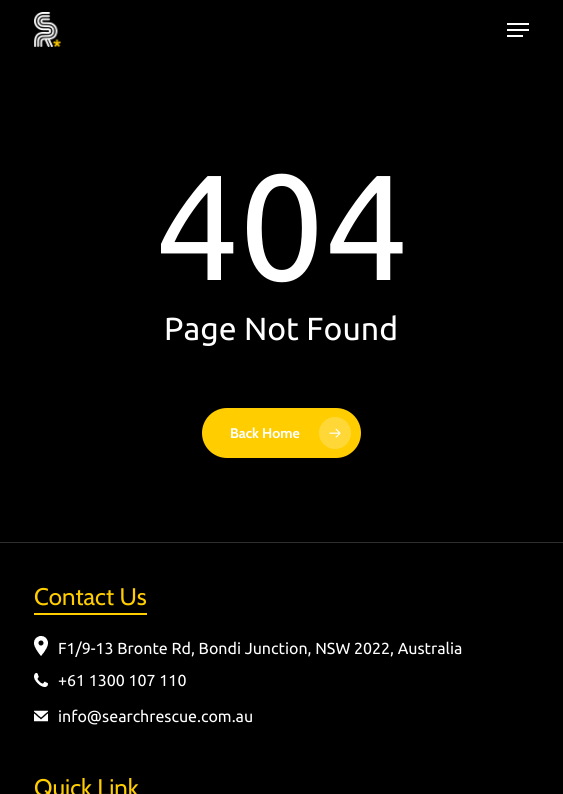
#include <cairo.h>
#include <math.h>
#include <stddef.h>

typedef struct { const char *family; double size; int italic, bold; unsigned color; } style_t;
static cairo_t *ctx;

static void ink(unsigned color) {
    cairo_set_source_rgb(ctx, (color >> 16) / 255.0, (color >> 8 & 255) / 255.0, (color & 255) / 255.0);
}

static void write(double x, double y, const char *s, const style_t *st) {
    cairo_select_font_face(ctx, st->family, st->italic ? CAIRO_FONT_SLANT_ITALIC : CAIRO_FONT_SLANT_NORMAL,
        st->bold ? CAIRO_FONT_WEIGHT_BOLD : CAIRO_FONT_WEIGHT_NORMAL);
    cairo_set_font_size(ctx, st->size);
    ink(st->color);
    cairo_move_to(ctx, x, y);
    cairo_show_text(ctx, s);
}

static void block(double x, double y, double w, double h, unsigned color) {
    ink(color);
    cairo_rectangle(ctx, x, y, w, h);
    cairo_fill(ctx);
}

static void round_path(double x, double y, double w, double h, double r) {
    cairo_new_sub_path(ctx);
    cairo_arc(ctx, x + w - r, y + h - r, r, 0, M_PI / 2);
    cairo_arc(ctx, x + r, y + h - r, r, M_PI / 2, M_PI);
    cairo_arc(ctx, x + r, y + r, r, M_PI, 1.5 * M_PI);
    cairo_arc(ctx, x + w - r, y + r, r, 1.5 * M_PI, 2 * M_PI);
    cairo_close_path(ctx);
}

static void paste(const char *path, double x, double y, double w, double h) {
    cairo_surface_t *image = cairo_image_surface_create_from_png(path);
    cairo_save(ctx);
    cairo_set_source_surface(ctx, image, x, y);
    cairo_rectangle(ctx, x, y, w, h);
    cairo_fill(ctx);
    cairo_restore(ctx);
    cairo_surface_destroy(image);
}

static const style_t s1 = {"Ubuntu", 150, 0, 0, 0xffffff};
static const style_t s2 = {"Ubuntu", 32, 0, 0, 0xffffff};
static const style_t s3 = {"Cabin", 14, 0, 1, 0xffffff};
static const style_t s4 = {"Cabin", 24, 0, 0, 0xffcd00};
static const style_t s5 = {"Ubuntu", 16, 0, 0, 0xffffff};

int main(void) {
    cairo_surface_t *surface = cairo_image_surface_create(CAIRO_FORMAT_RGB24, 563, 794);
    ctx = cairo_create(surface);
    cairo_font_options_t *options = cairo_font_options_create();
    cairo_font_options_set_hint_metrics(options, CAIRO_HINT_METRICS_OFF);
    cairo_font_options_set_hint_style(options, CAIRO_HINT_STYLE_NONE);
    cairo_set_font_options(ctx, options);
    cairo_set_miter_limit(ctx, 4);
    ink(0x000000);
    cairo_paint(ctx);
    paste("pic1.png", 34, 12, 27, 35);
    block(507, 23, 22, 2, 0xffffff);
    block(507, 35, 16, 2, 0xffffff);
    block(507, 29, 22, 2, 0xffffff);
    block(0, 542, 563, 1, 0x2e2e2e);
    write(155, 280, "404", &s1);
    write(164, 340, "Page Not Found", &s2);
    ink(0xffcd00);
    round_path(202, 408, 159, 50, 25);
    cairo_fill(ctx);
    write(230, 438, "Back Home", &s3);
    ink(0xffd838);
    cairo_new_path(ctx);
    cairo_arc(ctx, 335, 433, 16, 0, 2 * M_PI);
    cairo_fill(ctx);
    paste("pic2.png", 329, 428, 12, 10);
    write(34, 605, "Contact Us", &s4);
    block(34, 613, 113, 2, 0xffcd00);
    paste("pic3.png", 34, 636, 14, 20);
    write(58, 654, "F1/9-13 Bronte Rd, Bondi Junction, NSW 2022, Australia", &s5);
    paste("pic4.png", 34, 673, 14, 14);
    write(58, 686, "+61 1300 107 110", &s5);
    paste("pic5.png", 34, 710, 14, 12);
    write(58, 722, "info@searchrescue.com.au", &s5);
    write(34, 796, "Quick Link", &s4);
    cairo_surface_write_to_png(surface, "screenshot.png");
    cairo_font_options_destroy(options);
    cairo_destroy(ctx);
    cairo_surface_destroy(surface);
    return 0;
}
